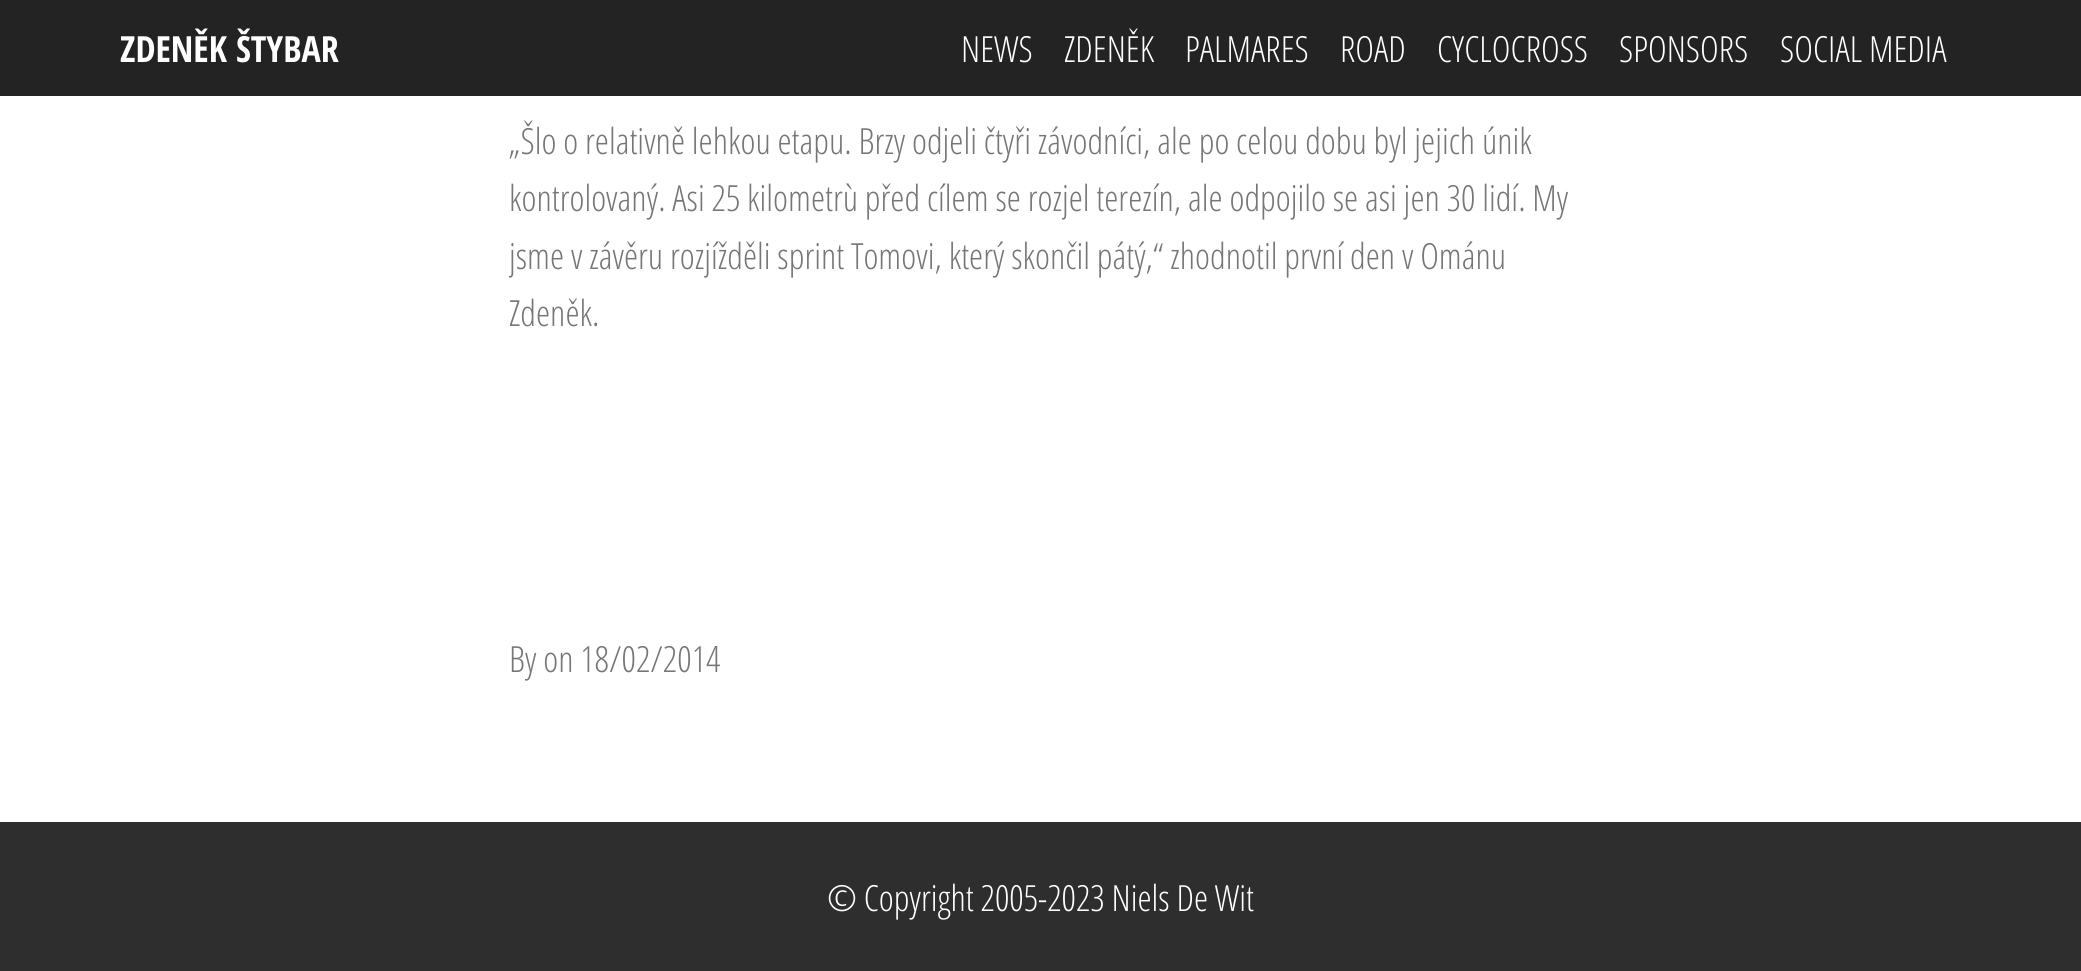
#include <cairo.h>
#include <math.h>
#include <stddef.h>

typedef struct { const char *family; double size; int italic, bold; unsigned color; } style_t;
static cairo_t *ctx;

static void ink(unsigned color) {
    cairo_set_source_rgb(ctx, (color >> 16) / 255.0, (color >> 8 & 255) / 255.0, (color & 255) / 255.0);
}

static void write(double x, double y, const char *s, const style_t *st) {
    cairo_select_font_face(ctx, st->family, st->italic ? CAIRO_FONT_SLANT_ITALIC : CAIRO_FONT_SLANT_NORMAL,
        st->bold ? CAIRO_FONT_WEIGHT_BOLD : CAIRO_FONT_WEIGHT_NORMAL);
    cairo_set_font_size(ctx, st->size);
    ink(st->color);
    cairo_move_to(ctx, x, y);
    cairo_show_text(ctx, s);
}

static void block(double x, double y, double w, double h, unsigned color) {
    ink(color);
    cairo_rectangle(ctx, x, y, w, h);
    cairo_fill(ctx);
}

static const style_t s1 = {"Open Sans Condensed", 36, 0, 1, 0xffffff};
static const style_t s2 = {"Open Sans Condensed Light", 36, 0, 0, 0xffffff};
static const style_t s3 = {"Open Sans Condensed Light", 36, 0, 0, 0x767676};

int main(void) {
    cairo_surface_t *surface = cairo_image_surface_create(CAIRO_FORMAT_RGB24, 2081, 971);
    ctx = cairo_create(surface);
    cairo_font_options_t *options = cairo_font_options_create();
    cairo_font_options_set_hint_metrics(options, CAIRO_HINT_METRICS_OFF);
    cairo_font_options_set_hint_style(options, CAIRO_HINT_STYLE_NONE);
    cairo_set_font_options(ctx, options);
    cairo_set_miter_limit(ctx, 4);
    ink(0xffffff);
    cairo_paint(ctx);
    block(0, 0, 2081, 96, 0x232323);
    write(120, 62, "ZDENĚK ŠTYBAR", &s1);
    write(961, 62, "NEWS", &s2);
    write(1064, 62, "ZDENĚK", &s2);
    write(1185, 62, "PALMARES", &s2);
    write(1340, 62, "ROAD", &s2);
    write(1437, 62, "CYCLOCROSS", &s2);
    write(1619, 62, "SPONSORS", &s2);
    write(1780, 62, "SOCIAL MEDIA", &s2);
    write(509, 154, "„Šlo o relativně lehkou etapu. Brzy odjeli čtyři závodníci, ale po celou dobu byl jejich únik", &s3);
    write(509, 211, "kontrolovaný. Asi 25 kilometrù před cílem se rozjel terezín, ale odpojilo se asi jen 30 lidí. My", &s3);
    write(509, 269, "jsme v závěru rozjížděli sprint Tomovi, který skončil pátý,“ zhodnotil první den v Ománu", &s3);
    write(509, 326, "Zdeněk.", &s3);
    write(509, 672, "By on 18/02/2014", &s3);
    block(0, 822, 2081, 149, 0x2e2e2e);
    write(827, 911, "© Copyright 2005-2023 Niels De Wit", &s2);
    cairo_surface_write_to_png(surface, "screenshot.png");
    cairo_font_options_destroy(options);
    cairo_destroy(ctx);
    cairo_surface_destroy(surface);
    return 0;
}
